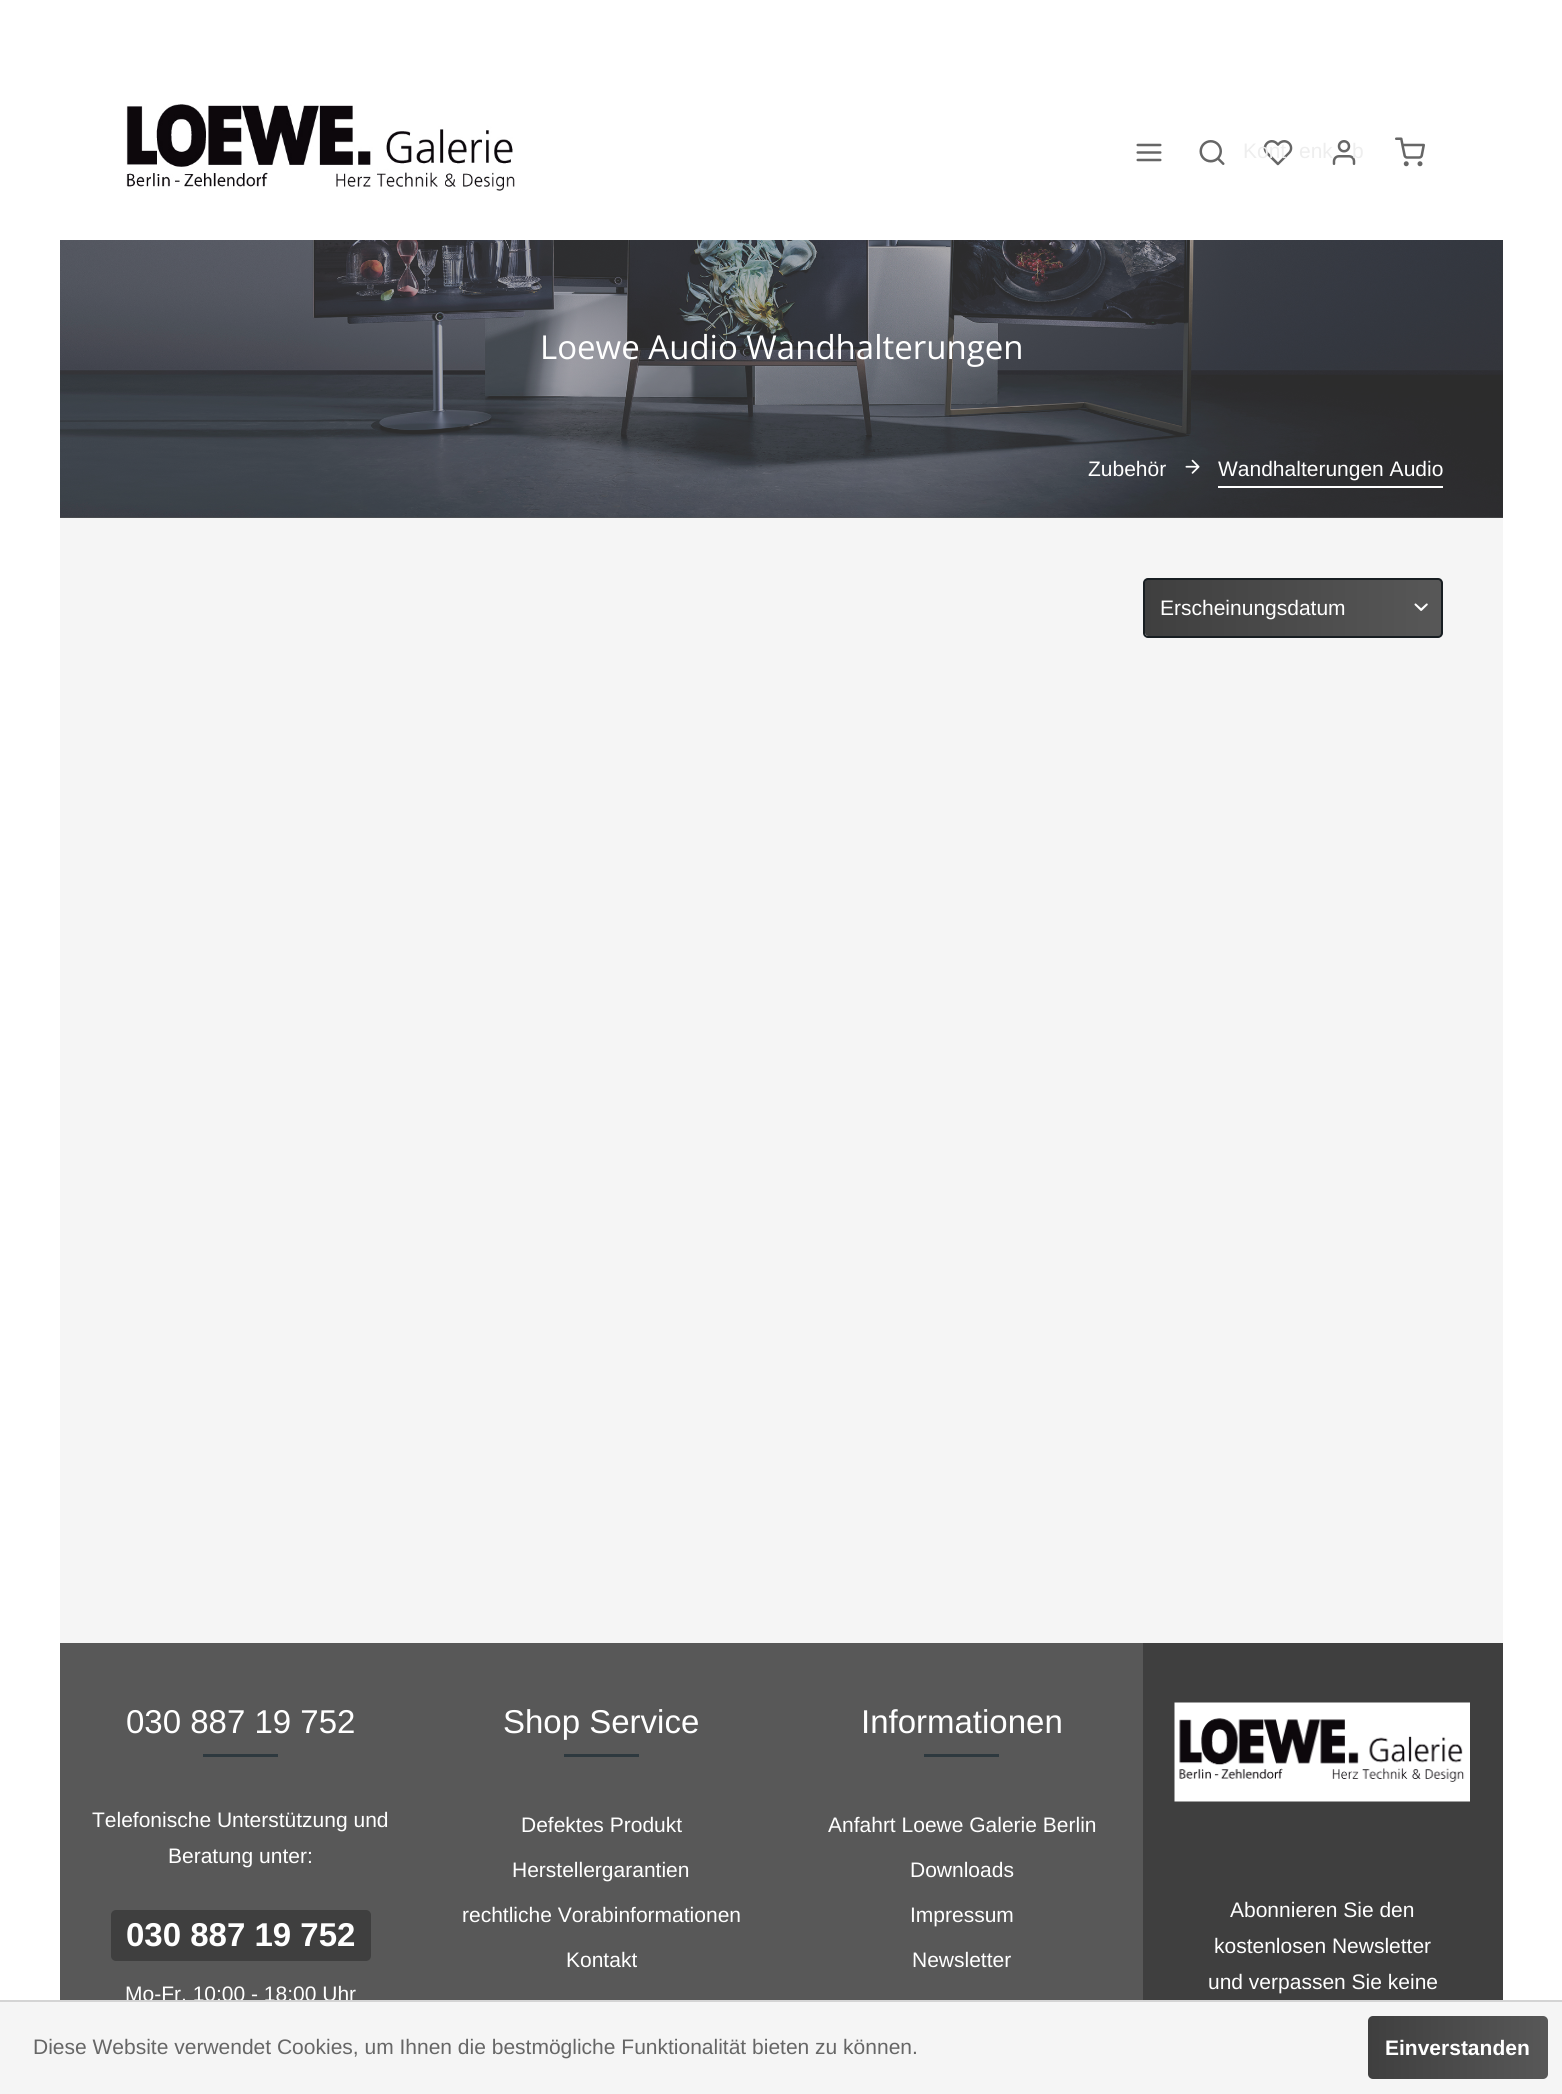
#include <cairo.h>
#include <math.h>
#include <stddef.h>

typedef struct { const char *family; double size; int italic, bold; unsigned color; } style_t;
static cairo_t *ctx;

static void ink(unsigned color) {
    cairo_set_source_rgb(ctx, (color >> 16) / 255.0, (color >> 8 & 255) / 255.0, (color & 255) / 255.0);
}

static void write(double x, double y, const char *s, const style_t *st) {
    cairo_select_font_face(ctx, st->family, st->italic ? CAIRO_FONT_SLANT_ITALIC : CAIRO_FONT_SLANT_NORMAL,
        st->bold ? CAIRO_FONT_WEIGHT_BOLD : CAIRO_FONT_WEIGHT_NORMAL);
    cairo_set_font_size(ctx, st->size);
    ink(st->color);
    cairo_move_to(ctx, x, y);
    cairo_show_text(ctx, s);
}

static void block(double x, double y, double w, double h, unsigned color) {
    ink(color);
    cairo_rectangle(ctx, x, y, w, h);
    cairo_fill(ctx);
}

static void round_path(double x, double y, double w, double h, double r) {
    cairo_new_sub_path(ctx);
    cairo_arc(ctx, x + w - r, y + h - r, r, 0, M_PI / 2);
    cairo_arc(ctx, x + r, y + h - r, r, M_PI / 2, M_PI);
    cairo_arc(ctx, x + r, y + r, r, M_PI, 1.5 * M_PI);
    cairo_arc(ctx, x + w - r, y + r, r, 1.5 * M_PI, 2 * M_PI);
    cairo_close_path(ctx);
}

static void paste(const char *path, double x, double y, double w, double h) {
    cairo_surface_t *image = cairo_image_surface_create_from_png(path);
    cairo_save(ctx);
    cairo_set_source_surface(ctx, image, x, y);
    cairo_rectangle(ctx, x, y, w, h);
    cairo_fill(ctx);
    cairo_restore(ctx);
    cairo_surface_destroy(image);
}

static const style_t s1 = {"Liberation Sans", 21, 0, 0, 0xeeeeee};
static const style_t s2 = {"Open Sans", 33, 0, 0, 0xffffff};
static const style_t s3 = {"Liberation Sans", 21, 0, 0, 0xffffff};
static const style_t s4 = {"Liberation Sans", 33, 0, 0, 0xffffff};
static const style_t s5 = {"Liberation Sans", 33, 0, 1, 0xffffff};
static const style_t s6 = {"Liberation Sans", 21, 0, 0, 0x666666};
static const style_t s7 = {"Liberation Sans", 21, 0, 1, 0xffffff};

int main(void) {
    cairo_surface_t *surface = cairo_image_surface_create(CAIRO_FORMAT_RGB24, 1562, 2094);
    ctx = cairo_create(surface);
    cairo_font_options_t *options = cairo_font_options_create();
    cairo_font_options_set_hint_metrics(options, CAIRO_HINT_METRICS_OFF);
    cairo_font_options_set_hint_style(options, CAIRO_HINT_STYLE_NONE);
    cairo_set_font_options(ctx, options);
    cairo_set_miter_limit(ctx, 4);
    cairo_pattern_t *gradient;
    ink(0xffffff);
    cairo_paint(ctx);
    block(60, 240, 1443, 278, 0x585858);
    paste("pic1.png", 126, 104, 389, 87);
    paste("pic2.png", 1136, 143, 26, 19);
    paste("pic3.png", 1199, 140, 26, 25);
    paste("pic4.png", 1263, 140, 30, 26);
    paste("pic6.png", 1332, 140, 24, 25);
    write(1299, 158, "enk", &s1);
    write(1352, 158, "b", &s1);
    paste("pic5.png", 1395, 137, 30, 30);
    write(1243, 158, "Kont", &s1);
    paste("pic7.png", 60, 240, 1443, 278);
    write(540, 359, "Loewe Audio Wandhalterungen", &s2);
    write(1088, 476, "Zubehör", &s3);
    paste("pic8.png", 1185, 459, 15, 15);
    block(1218, 486, 225, 2, 0xffffff);
    write(1218, 476, "Wandhalterungen Audio", &s3);
    block(60, 518, 1443, 1125, 0xf5f5f5);
    gradient = cairo_pattern_create_linear(1145, 608, 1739, 608);
    cairo_pattern_add_color_stop_rgba(gradient, 0, 0.247, 0.247, 0.247, 1);
    cairo_pattern_add_color_stop_rgba(gradient, 0.51, 0.345, 0.345, 0.345, 1);
    cairo_pattern_add_color_stop_rgba(gradient, 1, 0.247, 0.247, 0.247, 1);
    cairo_set_source(ctx, gradient);
    cairo_pattern_destroy(gradient);
    round_path(1145, 579, 297, 57, 3);
    cairo_fill(ctx);
    round_path(1144, 579, 298, 58, 4);
    ink(0x181e22);
    cairo_stroke(ctx);
    write(1160, 615, "Erscheinungsdatum", &s3);
    paste("pic9.png", 1414, 603, 14, 8);
    block(60, 1643, 1083, 357, 0x585858);
    write(126, 1733, "030 887 19 752", &s4);
    block(203, 1754, 75, 3, 0x2e393f);
    write(92, 1827, "Telefonische Unterstützung und", &s3);
    write(168, 1863, "Beratung unter:", &s3);
    ink(0x3f3f3f);
    round_path(111, 1910, 260, 51, 5);
    cairo_fill(ctx);
    write(126, 1946, "030 887 19 752", &s5);
    write(125, 2001, "Mo-Fr, 10:00 - 18:00 Uhr", &s3);
    write(503, 1733, "Shop Service", &s4);
    block(564, 1754, 75, 3, 0x2e393f);
    write(521, 1832, "Defektes Produkt", &s3);
    write(512, 1877, "Herstellergarantien", &s3);
    write(462, 1922, "rechtliche Vorabinformationen", &s3);
    write(566, 1967, "Kontakt", &s3);
    write(861, 1733, "Informationen", &s4);
    block(924, 1754, 75, 3, 0x2e393f);
    write(828, 1832, "Anfahrt Loewe Galerie Berlin", &s3);
    write(910, 1877, "Downloads", &s3);
    write(910, 1922, "Impressum", &s3);
    write(912, 1967, "Newsletter", &s3);
    block(1143, 1643, 360, 357, 0x3f3f3f);
    paste("pic10.png", 1174, 1702, 296, 100);
    write(1230, 1917, "Abonnieren Sie den", &s3);
    write(1214, 1953, "kostenlosen Newsletter", &s3);
    write(1208, 1989, "und verpassen Sie keine", &s3);
    block(0, 2002, 1562, 92, 0xf5f5f5);
    block(0, 2000, 1562, 2, 0xd4d4d4);
    write(33, 2054, "Diese Website verwendet Cookies, um Ihnen die bestmögliche Funktionalität bieten zu können.", &s6);
    gradient = cairo_pattern_create_linear(1368, 2048, 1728, 2048);
    cairo_pattern_add_color_stop_rgba(gradient, 0, 0.247, 0.247, 0.247, 1);
    cairo_pattern_add_color_stop_rgba(gradient, 0.51, 0.345, 0.345, 0.345, 1);
    cairo_pattern_add_color_stop_rgba(gradient, 1, 0.247, 0.247, 0.247, 1);
    cairo_set_source(ctx, gradient);
    cairo_pattern_destroy(gradient);
    round_path(1368, 2016, 180, 63, 5);
    cairo_fill(ctx);
    write(1385, 2055, "Einverstanden", &s7);
    cairo_surface_write_to_png(surface, "screenshot.png");
    cairo_font_options_destroy(options);
    cairo_destroy(ctx);
    cairo_surface_destroy(surface);
    return 0;
}
